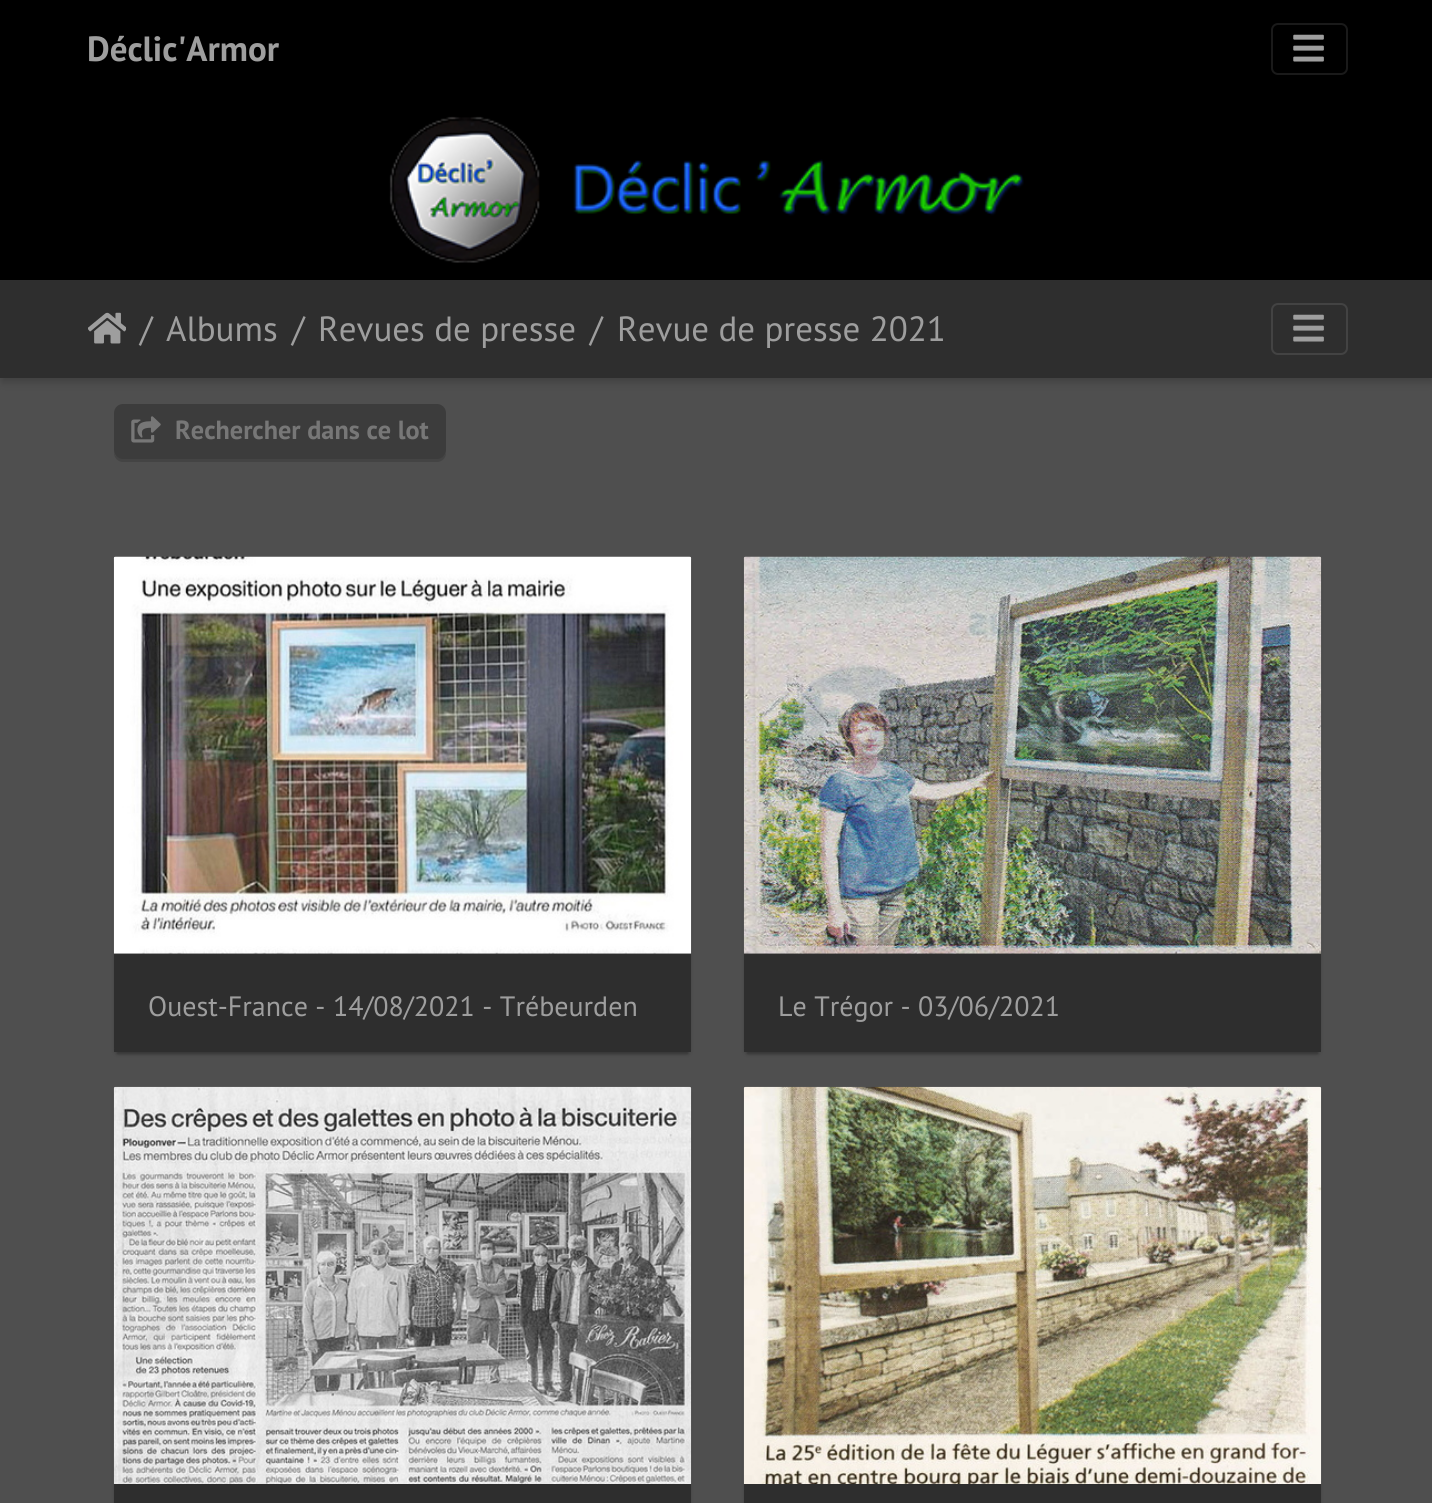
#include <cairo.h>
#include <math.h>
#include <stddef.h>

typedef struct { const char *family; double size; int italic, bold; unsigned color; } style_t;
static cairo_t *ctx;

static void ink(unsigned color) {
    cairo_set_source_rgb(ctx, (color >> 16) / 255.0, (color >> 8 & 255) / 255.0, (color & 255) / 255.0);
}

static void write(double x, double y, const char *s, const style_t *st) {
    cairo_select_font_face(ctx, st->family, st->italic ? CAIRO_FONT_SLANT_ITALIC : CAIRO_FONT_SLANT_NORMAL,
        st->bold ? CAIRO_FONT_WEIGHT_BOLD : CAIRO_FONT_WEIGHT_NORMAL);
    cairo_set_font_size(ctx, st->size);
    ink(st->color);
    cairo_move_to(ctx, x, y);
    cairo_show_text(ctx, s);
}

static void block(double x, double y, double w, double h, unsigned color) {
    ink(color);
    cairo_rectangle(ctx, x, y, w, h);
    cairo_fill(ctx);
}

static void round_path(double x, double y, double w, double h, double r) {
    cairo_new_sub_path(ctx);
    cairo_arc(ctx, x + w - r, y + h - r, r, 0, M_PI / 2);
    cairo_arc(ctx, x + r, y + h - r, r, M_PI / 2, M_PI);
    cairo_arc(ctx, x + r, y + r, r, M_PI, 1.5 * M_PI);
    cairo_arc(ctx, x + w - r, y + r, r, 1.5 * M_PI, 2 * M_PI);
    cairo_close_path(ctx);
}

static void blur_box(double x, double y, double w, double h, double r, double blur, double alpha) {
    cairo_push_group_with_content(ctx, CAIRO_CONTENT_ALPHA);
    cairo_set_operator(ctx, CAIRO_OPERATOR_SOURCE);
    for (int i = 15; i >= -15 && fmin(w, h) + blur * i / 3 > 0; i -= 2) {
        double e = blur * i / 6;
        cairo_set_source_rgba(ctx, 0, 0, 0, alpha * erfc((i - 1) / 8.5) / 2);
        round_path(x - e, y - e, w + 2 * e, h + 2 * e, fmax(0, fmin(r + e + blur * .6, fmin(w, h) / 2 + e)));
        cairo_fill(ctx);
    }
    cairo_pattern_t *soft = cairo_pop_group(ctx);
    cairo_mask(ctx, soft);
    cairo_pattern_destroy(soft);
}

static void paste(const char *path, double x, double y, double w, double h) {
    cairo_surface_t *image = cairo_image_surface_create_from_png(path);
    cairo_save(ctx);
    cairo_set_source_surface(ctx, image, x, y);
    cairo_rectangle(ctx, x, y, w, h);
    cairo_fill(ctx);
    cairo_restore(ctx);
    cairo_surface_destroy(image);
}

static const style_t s1 = {"PT Sans", 35, 0, 1, 0x9e9e9e};
static const style_t s2 = {"PT Sans", 35, 0, 0, 0x9e9e9e};
static const style_t s3 = {"PT Sans", 26.25, 0, 1, 0x777777};
static const style_t s4 = {"PT Sans", 28, 0, 0, 0x9e9e9e};

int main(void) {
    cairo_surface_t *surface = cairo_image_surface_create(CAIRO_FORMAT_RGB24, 1432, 1503);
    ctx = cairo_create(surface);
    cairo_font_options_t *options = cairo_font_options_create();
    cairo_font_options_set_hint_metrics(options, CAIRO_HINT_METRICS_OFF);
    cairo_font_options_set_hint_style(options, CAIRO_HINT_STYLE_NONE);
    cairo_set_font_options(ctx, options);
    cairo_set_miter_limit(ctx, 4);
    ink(0x4f4f4f);
    cairo_paint(ctx);
    block(0, 0, 1432, 280, 0x000000);
    paste("pic1.png", 389, 116, 151, 147);
    paste("pic2.png", 573, 159, 451, 57);
    write(87, 61, "Déclic'Armor", &s1);
    round_path(1272, 24, 75, 50, 6);
    ink(0x1a1a1a);
    cairo_stroke(ctx);
    paste("pic3.png", 1293, 34, 31, 28);
    ink(0x000000);
    blur_box(2, 287, 1430, 95, 0, 4.5, 0.2);
    block(0, 280, 1432, 98, 0x2e2e2e);
    paste("pic4.png", 88, 312, 38, 32);
    write(140, 341, "/", &s2);
    write(166, 341, "Albums", &s2);
    write(292, 341, "/", &s2);
    write(318, 341, "Revues de presse", &s2);
    write(590, 341, "/", &s2);
    write(617, 341, "Revue de presse 2021", &s2);
    round_path(1272, 304, 75, 50, 6);
    ink(0x434343);
    cairo_stroke(ctx);
    paste("pic5.png", 1293, 314, 31, 28);
    ink(0x444444);
    cairo_new_path(ctx);
    cairo_move_to(ctx, 114, 452);
    cairo_line_to(ctx, 114, 453);
    cairo_curve_to(ctx, 114, 458, 118, 462, 123, 462);
    cairo_line_to(ctx, 437, 462);
    cairo_curve_to(ctx, 442, 462, 446, 458, 446, 453);
    cairo_line_to(ctx, 446, 452);
    cairo_curve_to(ctx, 445, 456, 442, 458, 438, 458);
    cairo_line_to(ctx, 122, 458);
    cairo_curve_to(ctx, 118, 458, 115, 456, 114, 452);
    cairo_close_path(ctx);
    cairo_fill(ctx);
    ink(0x3c3c3c);
    round_path(114, 404, 332, 55, 9);
    cairo_fill(ctx);
    paste("pic6.png", 131, 416, 30, 27);
    write(175, 439, "Rechercher dans ce lot", &s3);
    ink(0x000000);
    blur_box(117, 565, 571, 489, 0, 1, 0.2);
    blur_box(114, 560, 577, 495, 4, 2, 0.14);
    ink(0x2e2e2e);
    round_path(114, 557, 577, 495, 4);
    cairo_fill(ctx);
    paste("pic7.png", 113, 556, 579, 398);
    block(114, 1049, 577, 3, 0x2e2e2e);
    write(148, 1016, "Ouest-France - 14/08/2021 - Trébeurden", &s4);
    ink(0x000000);
    blur_box(747, 565, 571, 489, 0, 1, 0.2);
    blur_box(744, 560, 577, 495, 4, 2, 0.14);
    ink(0x2e2e2e);
    round_path(744, 557, 577, 495, 4);
    cairo_fill(ctx);
    paste("pic8.png", 743, 556, 579, 398);
    block(744, 1049, 577, 3, 0x2e2e2e);
    write(778, 1016, "Le Trégor - 03/06/2021", &s4);
    ink(0x000000);
    blur_box(114, 1090, 577, 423, 4, 2, 0.14);
    ink(0x2e2e2e);
    round_path(114, 1087, 577, 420, 4);
    cairo_fill(ctx);
    paste("pic9.png", 113, 1086, 579, 398);
    ink(0x000000);
    blur_box(744, 1090, 577, 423, 4, 2, 0.14);
    ink(0x2e2e2e);
    round_path(744, 1087, 577, 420, 4);
    cairo_fill(ctx);
    paste("pic10.png", 743, 1086, 579, 398);
    cairo_surface_write_to_png(surface, "screenshot.png");
    cairo_font_options_destroy(options);
    cairo_destroy(ctx);
    cairo_surface_destroy(surface);
    return 0;
}
